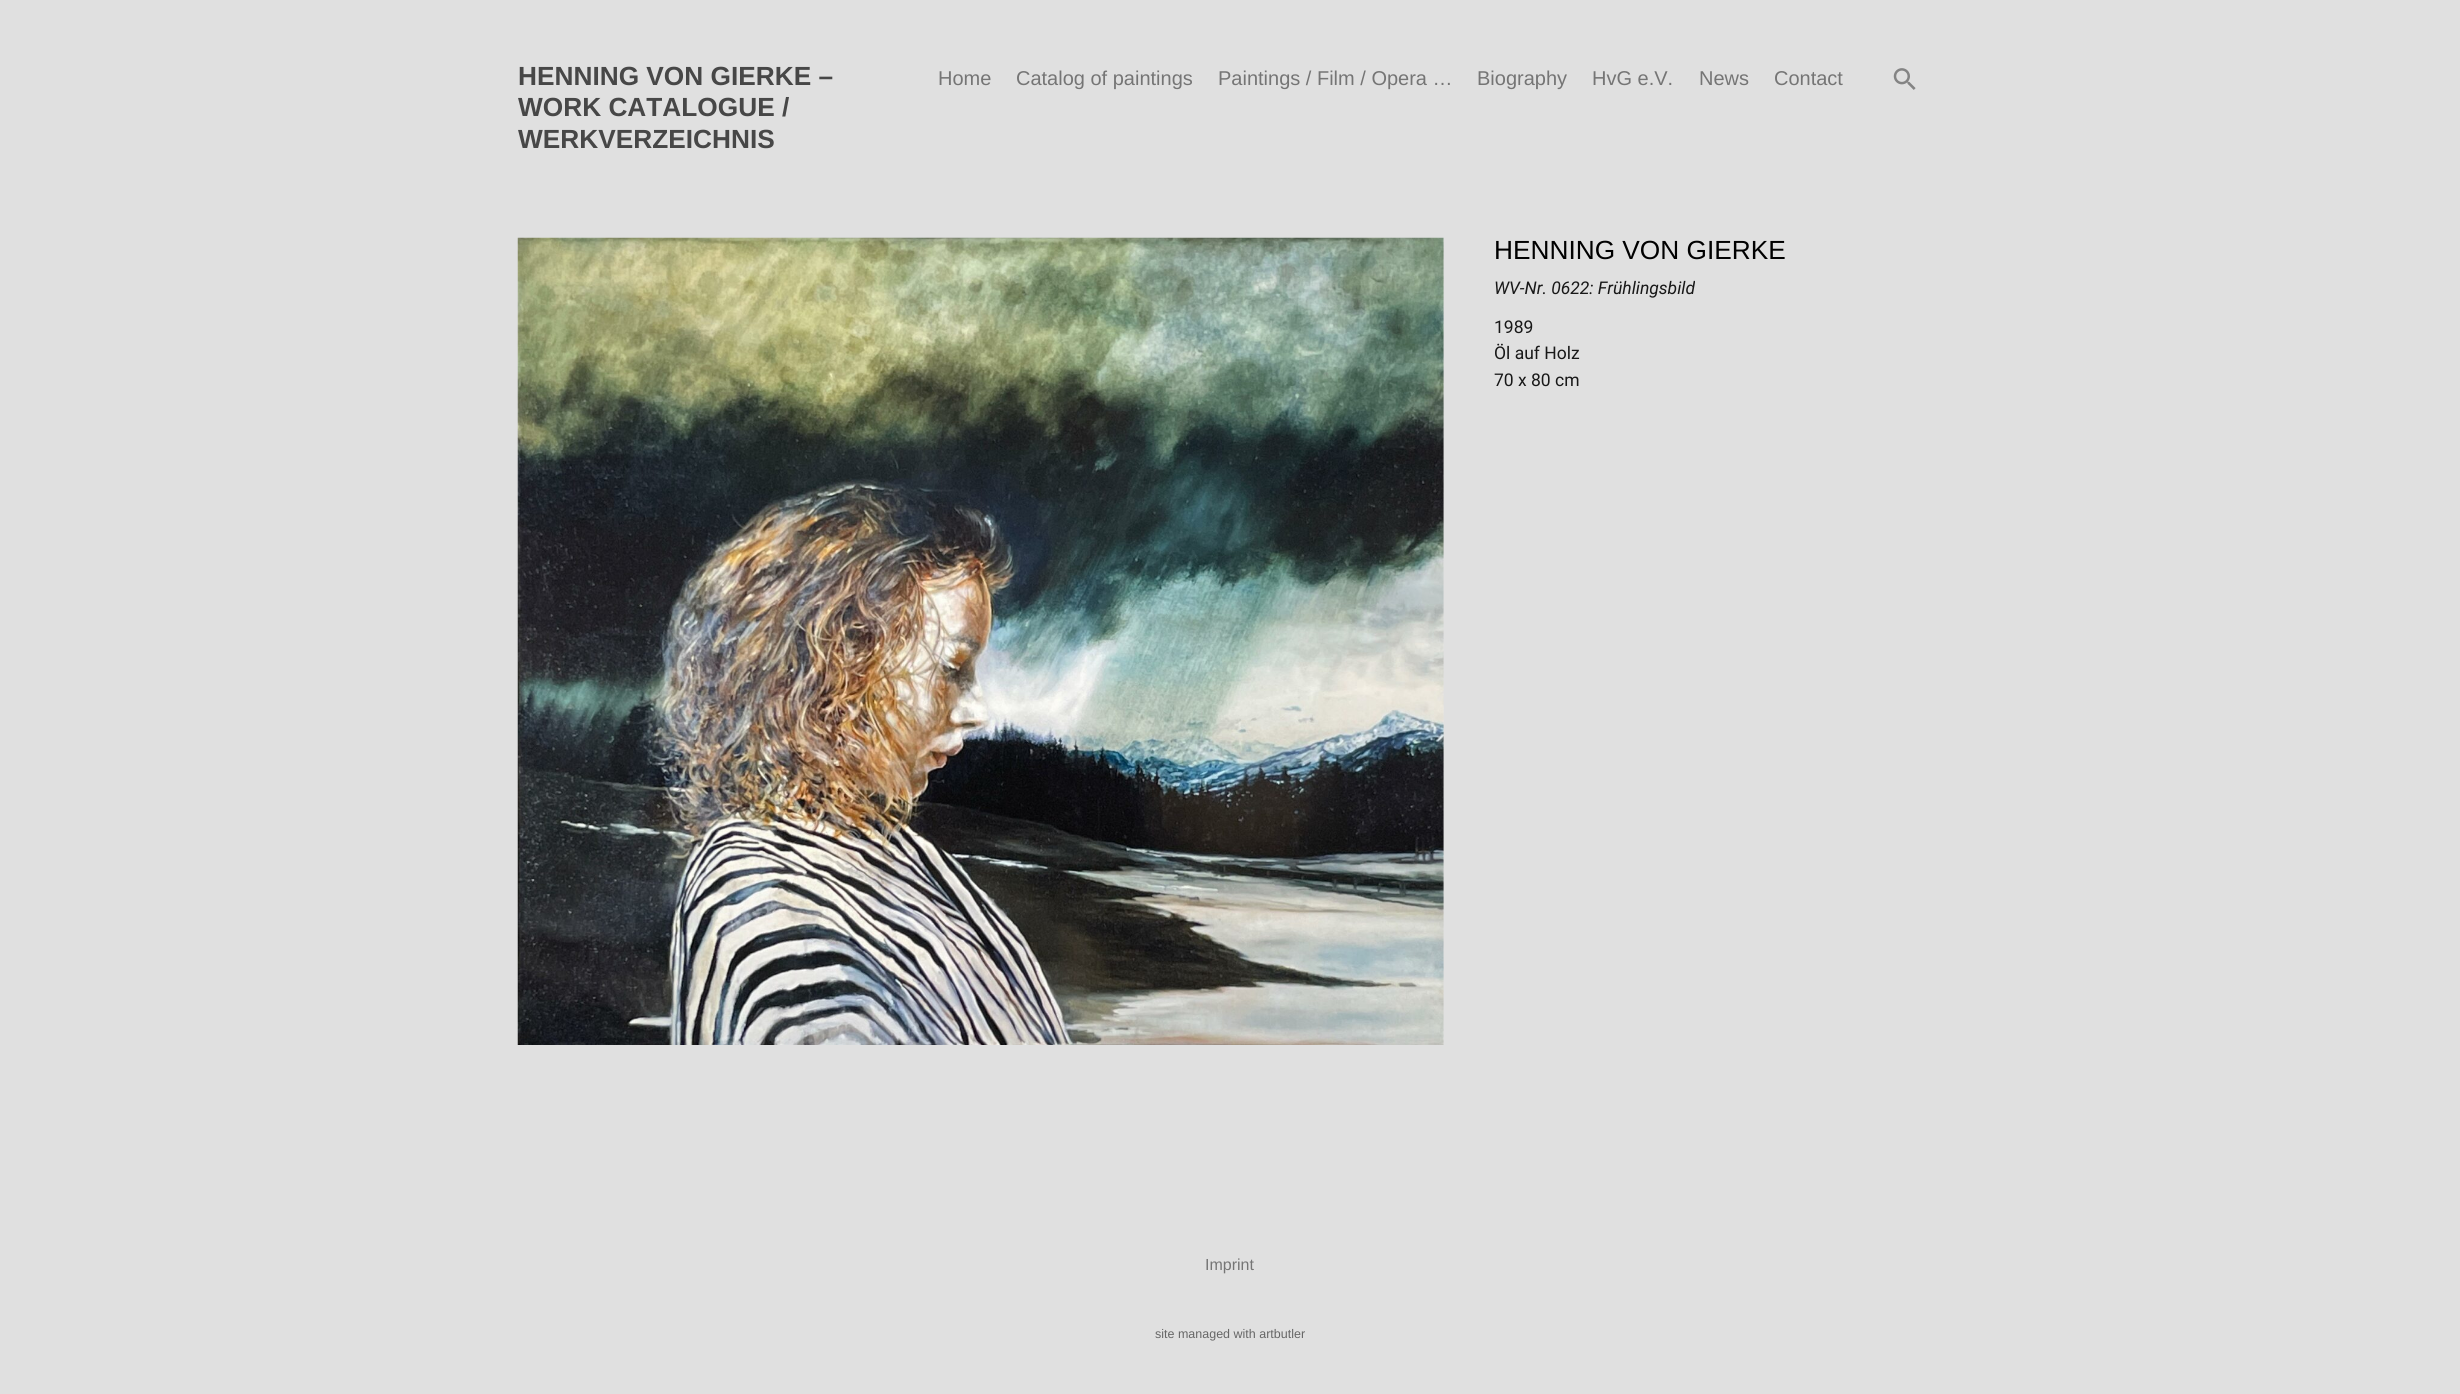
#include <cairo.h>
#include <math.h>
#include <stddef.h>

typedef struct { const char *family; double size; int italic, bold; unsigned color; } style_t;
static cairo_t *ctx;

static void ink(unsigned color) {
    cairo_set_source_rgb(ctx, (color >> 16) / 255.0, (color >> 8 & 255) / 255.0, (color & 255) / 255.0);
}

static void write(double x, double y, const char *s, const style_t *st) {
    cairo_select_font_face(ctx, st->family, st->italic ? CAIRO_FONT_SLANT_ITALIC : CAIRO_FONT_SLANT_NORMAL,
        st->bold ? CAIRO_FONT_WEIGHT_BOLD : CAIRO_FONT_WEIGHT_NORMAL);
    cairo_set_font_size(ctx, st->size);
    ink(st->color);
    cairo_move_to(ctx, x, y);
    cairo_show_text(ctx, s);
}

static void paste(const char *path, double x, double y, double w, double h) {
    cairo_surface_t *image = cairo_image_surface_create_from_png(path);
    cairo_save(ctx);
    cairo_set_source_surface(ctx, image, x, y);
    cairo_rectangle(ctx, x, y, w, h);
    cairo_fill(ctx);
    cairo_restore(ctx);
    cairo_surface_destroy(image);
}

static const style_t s1 = {"Liberation Sans", 26.25, 0, 1, 0x474747};
static const style_t s2 = {"Liberation Sans", 20, 0, 0, 0x757575};
static const style_t s3 = {"Liberation Sans", 26.25, 0, 0, 0x000000};
static const style_t s4 = {"Roboto", 17.5, 1, 0, 0x181818};
static const style_t s5 = {"Roboto", 17.5, 0, 0, 0x181818};
static const style_t s6 = {"Liberation Sans", 16, 0, 0, 0x757575};
static const style_t s7 = {"Liberation Sans", 12.5, 0, 0, 0x666666};

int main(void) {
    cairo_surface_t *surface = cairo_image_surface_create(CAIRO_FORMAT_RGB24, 2460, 1394);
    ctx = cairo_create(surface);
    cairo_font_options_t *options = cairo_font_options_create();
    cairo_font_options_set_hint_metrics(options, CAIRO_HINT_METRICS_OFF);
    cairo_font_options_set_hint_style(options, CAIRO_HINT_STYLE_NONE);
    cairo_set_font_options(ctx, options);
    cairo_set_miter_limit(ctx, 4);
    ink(0xe0e0e0);
    cairo_paint(ctx);
    write(518, 85, "HENNING VON GIERKE –", &s1);
    write(518, 116, "WORK CATALOGUE /", &s1);
    write(518, 148, "WERKVERZEICHNIS", &s1);
    write(938, 85, "Home", &s2);
    write(1016, 85, "Catalog of paintings", &s2);
    write(1218, 85, "Paintings / Film / Opera …", &s2);
    write(1477, 85, "Biography", &s2);
    write(1592, 85, "HvG e.V.", &s2);
    write(1699, 85, "News", &s2);
    write(1774, 85, "Contact", &s2);
    paste("pic1.png", 1893, 68, 23, 22);
    paste("pic2.png", 517, 237, 927, 808);
    write(1494, 259, "HENNING VON GIERKE", &s3);
    write(1494, 294, "WV-Nr. 0622: Frühlingsbild", &s4);
    write(1494, 333, "1989", &s5);
    write(1494, 359, "Öl auf Holz", &s5);
    write(1494, 386, "70 x 80 cm", &s5);
    write(1205, 1270, "Imprint", &s6);
    write(1155, 1338, "site managed with artbutler", &s7);
    cairo_surface_write_to_png(surface, "screenshot.png");
    cairo_font_options_destroy(options);
    cairo_destroy(ctx);
    cairo_surface_destroy(surface);
    return 0;
}
